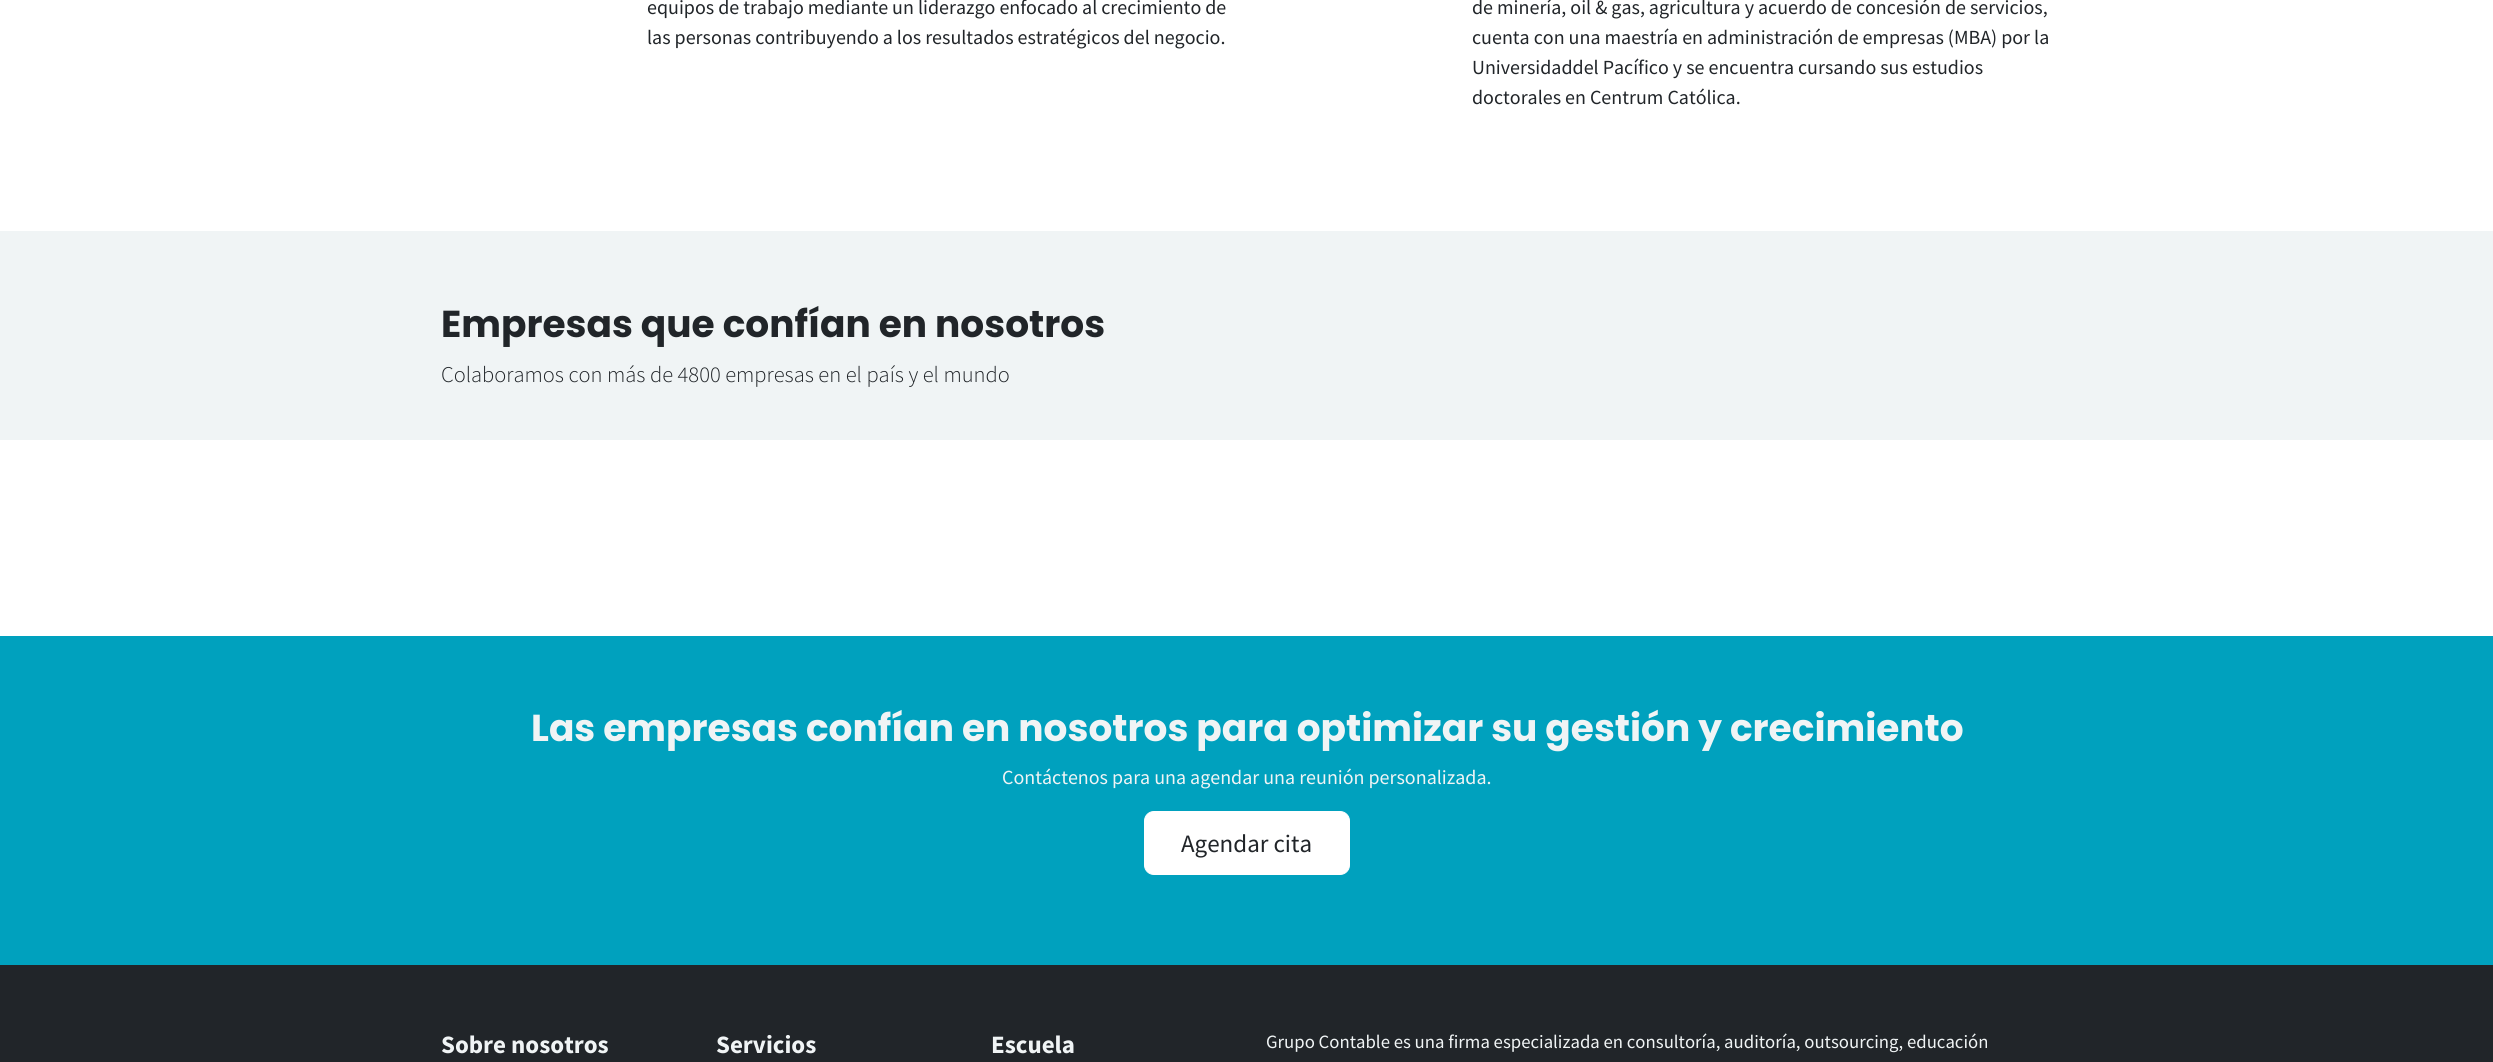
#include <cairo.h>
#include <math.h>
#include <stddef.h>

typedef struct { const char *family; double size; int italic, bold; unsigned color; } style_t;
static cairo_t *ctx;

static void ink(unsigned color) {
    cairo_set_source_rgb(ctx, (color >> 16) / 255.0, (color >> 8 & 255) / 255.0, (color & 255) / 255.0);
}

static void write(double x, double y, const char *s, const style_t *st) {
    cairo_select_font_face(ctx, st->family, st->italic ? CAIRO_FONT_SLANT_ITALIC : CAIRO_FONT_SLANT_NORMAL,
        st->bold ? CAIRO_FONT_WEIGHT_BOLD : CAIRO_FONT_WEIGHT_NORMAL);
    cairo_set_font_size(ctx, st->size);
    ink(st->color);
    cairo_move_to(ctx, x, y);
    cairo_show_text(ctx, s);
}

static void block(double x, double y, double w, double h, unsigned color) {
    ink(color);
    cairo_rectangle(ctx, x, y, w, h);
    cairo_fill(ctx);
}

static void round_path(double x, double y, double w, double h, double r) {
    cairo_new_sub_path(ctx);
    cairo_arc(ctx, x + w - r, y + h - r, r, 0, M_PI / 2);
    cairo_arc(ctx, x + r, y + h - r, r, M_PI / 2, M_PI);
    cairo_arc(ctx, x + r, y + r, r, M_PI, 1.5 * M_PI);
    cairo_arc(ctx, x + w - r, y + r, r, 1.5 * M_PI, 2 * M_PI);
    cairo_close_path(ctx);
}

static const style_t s1 = {"Source Sans Pro", 20, 0, 0, 0x212529};
static const style_t s2 = {"Poppins", 37.5, 0, 1, 0x212529};
static const style_t s3 = {"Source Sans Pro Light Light", 22.5, 0, 0, 0x212529};
static const style_t s4 = {"Poppins", 37.5, 0, 1, 0xf0f4f5};
static const style_t s5 = {"Source Sans Pro", 20, 0, 0, 0xf0f4f5};
static const style_t s6 = {"Source Sans Pro", 25, 0, 0, 0x212529};
static const style_t s7 = {"Source Sans Pro", 25, 0, 1, 0xf0f4f5};
static const style_t s8 = {"Source Sans Pro", 18.75, 0, 0, 0xf0f4f5};

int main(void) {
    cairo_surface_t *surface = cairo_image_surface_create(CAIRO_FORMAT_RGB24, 2493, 1062);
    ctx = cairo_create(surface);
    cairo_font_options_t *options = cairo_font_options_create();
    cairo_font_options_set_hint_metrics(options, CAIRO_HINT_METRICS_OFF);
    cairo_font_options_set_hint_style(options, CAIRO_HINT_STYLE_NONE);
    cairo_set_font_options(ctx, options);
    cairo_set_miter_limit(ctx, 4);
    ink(0xffffff);
    cairo_paint(ctx);
    write(647, 14, "equipos de trabajo mediante un liderazgo enfocado al crecimiento de", &s1);
    write(647, 44, "las personas contribuyendo a los resultados estratégicos del negocio.", &s1);
    write(1472, 14, "de minería, oil & gas, agricultura y acuerdo de concesión de servicios,", &s1);
    write(1472, 44, "cuenta con una maestría en administración de empresas (MBA) por la", &s1);
    write(1472, 74, "Universidaddel Pacífico y se encuentra cursando sus estudios", &s1);
    write(1472, 104, "doctorales en Centrum Católica.", &s1);
    block(0, 231, 2493, 209, 0xf0f4f5);
    write(441, 337, "Empresas que confían en nosotros", &s2);
    write(441, 382, "Colaboramos con más de 4800 empresas en el país y el mundo", &s3);
    block(0, 636, 2493, 329, 0x00a1be);
    write(531, 741, "Las empresas confían en nosotros para optimizar su gestión y crecimiento", &s4);
    write(1002, 784, "Contáctenos para una agendar una reunión personalizada.", &s5);
    ink(0xffffff);
    round_path(1144.5, 811.5, 205, 63, 9.5);
    cairo_fill_preserve(ctx);
    cairo_set_line_width(ctx, 1);
    cairo_stroke(ctx);
    write(1181, 852, "Agendar cita", &s6);
    block(0, 965, 2493, 97, 0x212529);
    write(441, 1053, "Sobre nosotros", &s7);
    write(716, 1053, "Servicios", &s7);
    write(991, 1053, "Escuela", &s7);
    write(1266, 1048, "Grupo Contable es una firma especializada en consultoría, auditoría, outsourcing, educación", &s8);
    cairo_surface_write_to_png(surface, "screenshot.png");
    cairo_font_options_destroy(options);
    cairo_destroy(ctx);
    cairo_surface_destroy(surface);
    return 0;
}
